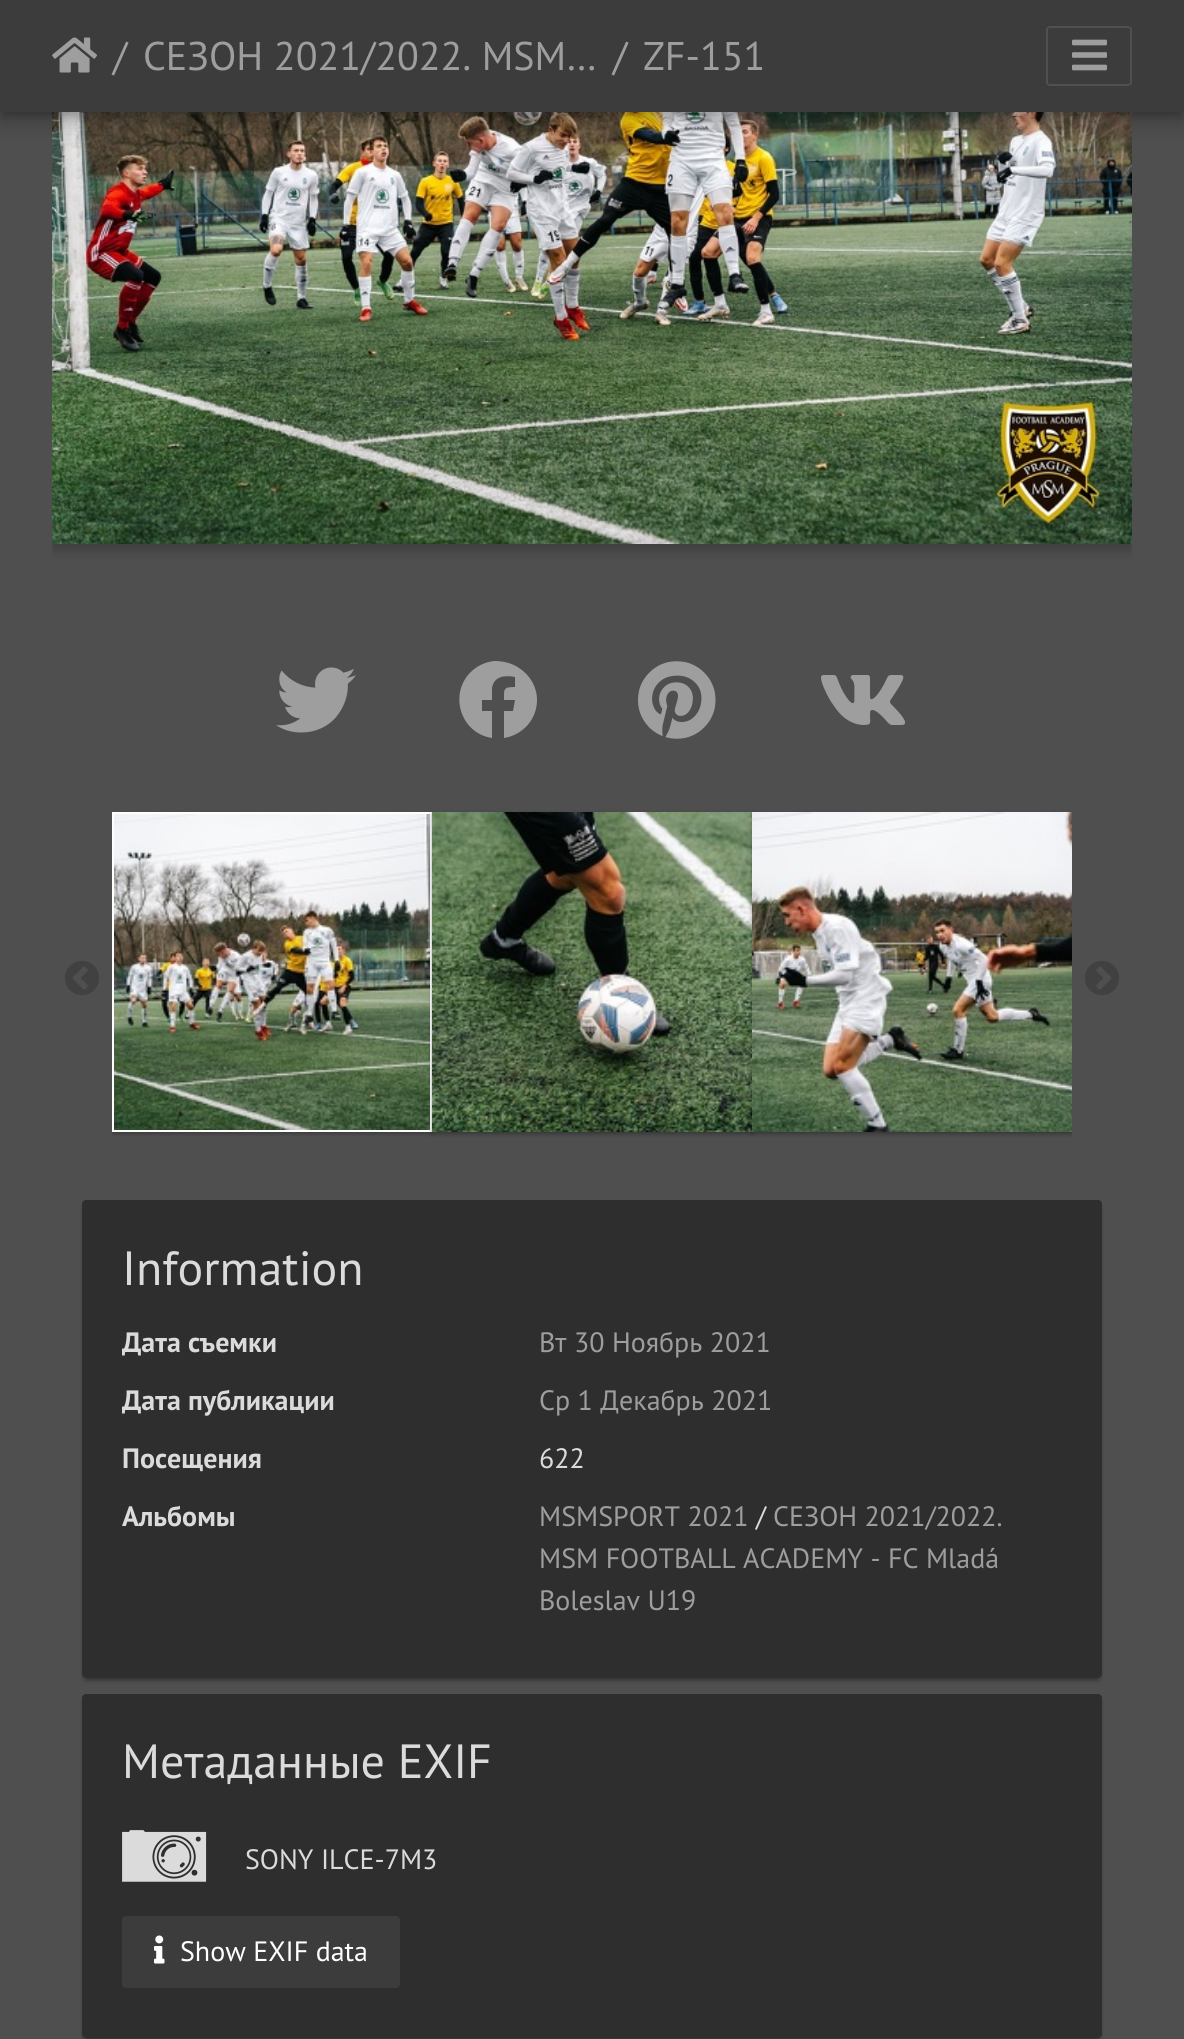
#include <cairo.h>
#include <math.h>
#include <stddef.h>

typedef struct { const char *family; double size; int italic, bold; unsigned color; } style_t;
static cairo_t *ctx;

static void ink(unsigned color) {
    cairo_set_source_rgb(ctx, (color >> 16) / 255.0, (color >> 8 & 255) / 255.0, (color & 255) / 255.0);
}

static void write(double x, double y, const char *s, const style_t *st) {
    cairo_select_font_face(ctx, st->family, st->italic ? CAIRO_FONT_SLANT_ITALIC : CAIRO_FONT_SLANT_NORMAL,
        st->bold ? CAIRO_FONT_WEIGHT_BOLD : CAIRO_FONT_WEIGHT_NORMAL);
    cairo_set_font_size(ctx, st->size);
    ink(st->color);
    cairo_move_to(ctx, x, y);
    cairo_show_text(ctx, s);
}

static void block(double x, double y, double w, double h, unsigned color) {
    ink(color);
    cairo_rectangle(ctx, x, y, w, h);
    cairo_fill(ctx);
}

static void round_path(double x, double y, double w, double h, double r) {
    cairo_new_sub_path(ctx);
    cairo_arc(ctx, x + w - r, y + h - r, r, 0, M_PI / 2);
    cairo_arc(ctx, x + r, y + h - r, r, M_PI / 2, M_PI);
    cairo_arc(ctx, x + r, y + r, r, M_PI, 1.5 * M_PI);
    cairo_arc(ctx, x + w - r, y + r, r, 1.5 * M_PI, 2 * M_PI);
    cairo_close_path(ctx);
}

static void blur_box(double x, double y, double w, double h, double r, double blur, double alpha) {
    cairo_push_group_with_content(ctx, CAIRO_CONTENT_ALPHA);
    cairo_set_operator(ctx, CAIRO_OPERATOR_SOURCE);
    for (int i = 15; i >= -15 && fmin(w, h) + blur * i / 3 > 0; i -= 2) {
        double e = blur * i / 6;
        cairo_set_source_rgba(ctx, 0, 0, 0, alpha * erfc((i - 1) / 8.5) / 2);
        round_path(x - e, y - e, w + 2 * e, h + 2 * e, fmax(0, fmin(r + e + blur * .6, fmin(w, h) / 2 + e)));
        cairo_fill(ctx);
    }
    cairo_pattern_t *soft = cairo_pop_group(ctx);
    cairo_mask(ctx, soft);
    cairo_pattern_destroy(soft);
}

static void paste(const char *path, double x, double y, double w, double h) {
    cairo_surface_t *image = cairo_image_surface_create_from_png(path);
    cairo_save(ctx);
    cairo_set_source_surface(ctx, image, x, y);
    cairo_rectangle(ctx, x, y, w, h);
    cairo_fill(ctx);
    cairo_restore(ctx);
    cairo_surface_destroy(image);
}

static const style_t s1 = {"PT Sans", 40, 0, 0, 0x9e9e9e};
static const style_t s2 = {"PT Sans", 48, 0, 0, 0xdbdbdb};
static const style_t s3 = {"PT Sans", 28, 0, 1, 0xdbdbdb};
static const style_t s4 = {"PT Sans", 28, 0, 0, 0x9e9e9e};
static const style_t s5 = {"PT Sans", 28, 0, 0, 0xdbdbdb};
static const style_t s6 = {"PT Sans", 28, 0, 0, 0xffffff};

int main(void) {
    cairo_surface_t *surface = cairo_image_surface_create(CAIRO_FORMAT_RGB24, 1184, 2039);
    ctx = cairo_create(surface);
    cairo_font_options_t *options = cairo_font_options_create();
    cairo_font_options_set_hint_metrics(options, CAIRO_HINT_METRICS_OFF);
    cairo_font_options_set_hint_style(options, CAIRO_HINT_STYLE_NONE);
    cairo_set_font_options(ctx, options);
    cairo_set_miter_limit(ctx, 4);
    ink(0x4f4f4f);
    cairo_paint(ctx);
    cairo_save(ctx);
    cairo_rectangle(ctx, 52, 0, 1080, 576);
    cairo_clip(ctx);
    ink(0x000000);
    blur_box(52, -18, 1080, 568, 0, 6, 0.23);
    cairo_restore(ctx);
    paste("pic1.png", 52, 112, 1080, 432);
    paste("pic2.png", 276, 667, 80, 66);
    ink(0x9e9e9e);
    cairo_new_path(ctx);
    cairo_move_to(ctx, 537, 700);
    cairo_curve_to(ctx, 537, 719, 523, 735, 504, 738);
    cairo_line_to(ctx, 504, 711);
    cairo_line_to(ctx, 513, 711);
    cairo_line_to(ctx, 515, 700);
    cairo_line_to(ctx, 504, 700);
    cairo_curve_to(ctx, 504, 689, 503, 687, 515, 687);
    cairo_line_to(ctx, 515, 677);
    cairo_curve_to(ctx, 505, 675, 494, 676, 492, 688);
    cairo_line_to(ctx, 492, 700);
    cairo_line_to(ctx, 482, 700);
    cairo_line_to(ctx, 482, 711);
    cairo_line_to(ctx, 492, 711);
    cairo_line_to(ctx, 492, 738);
    cairo_curve_to(ctx, 459, 733, 448, 691, 473, 670);
    cairo_curve_to(ctx, 479, 665, 486, 662, 494, 661);
    cairo_curve_to(ctx, 503, 661, 512, 663, 519, 668);
    cairo_curve_to(ctx, 530, 675, 537, 687, 537, 700);
    cairo_close_path(ctx);
    cairo_fill(ctx);
    paste("pic3.png", 638, 661, 78, 78);
    paste("pic4.png", 821, 675, 84, 50);
    ink(0x000000);
    blur_box(2, 8, 1180, 108, 0, 5, 0.2);
    blur_box(0, 2, 1184, 112, 0, 18, 0.12);
    blur_box(0, 12, 1184, 112, 0, 10, 0.14);
    block(0, 0, 1184, 112, 0x3c3c3c);
    paste("pic5.png", 52, 37, 45, 36);
    write(113, 70, "/", &s1);
    write(143, 70, "СЕЗОН 2021/2022. MSM…", &s1);
    write(613, 70, "/", &s1);
    write(643, 70, "ZF-151", &s1);
    round_path(1047, 27, 84, 58, 3);
    ink(0x505050);
    cairo_stroke(ctx);
    paste("pic6.png", 1072, 39, 35, 32);
    paste("pic7.png", 65, 961, 34, 34);
    cairo_save(ctx);
    cairo_rectangle(ctx, 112, 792, 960, 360);
    cairo_clip(ctx);
    ink(0x000000);
    blur_box(112, 814, 320, 320, 0, 2, 0.24);
    cairo_restore(ctx);
    cairo_rectangle(ctx, 113, 813, 318, 318);
    ink(0xffffff);
    cairo_stroke(ctx);
    paste("pic8.png", 114, 814, 316, 316);
    ink(0x000000);
    blur_box(432, 814, 320, 320, 0, 3, 0.12);
    blur_box(432, 814, 320, 320, 0, 2, 0.24);
    paste("pic9.png", 432, 812, 320, 320);
    cairo_save(ctx);
    cairo_rectangle(ctx, 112, 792, 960, 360);
    cairo_clip(ctx);
    blur_box(752, 814, 320, 320, 0, 3, 0.12);
    blur_box(752, 814, 320, 320, 0, 2, 0.24);
    cairo_restore(ctx);
    paste("pic10.png", 752, 812, 320, 320);
    paste("pic11.png", 1085, 961, 34, 34);
    blur_box(86, 1210, 1012, 470, 0, 1, 0.2);
    blur_box(82, 1204, 1020, 478, 4, 2, 0.14);
    ink(0x2e2e2e);
    round_path(82, 1200, 1020, 478, 4);
    cairo_fill(ctx);
    write(122, 1285, "Information", &s2);
    write(122, 1352, "Дата съемки", &s3);
    write(539, 1352, "Вт 30 Ноябрь 2021", &s4);
    write(122, 1410, "Дата публикации", &s3);
    write(539, 1410, "Ср 1 Декабрь 2021", &s4);
    write(122, 1468, "Посещения", &s3);
    write(539, 1468, "622", &s5);
    write(122, 1526, "Альбомы", &s3);
    write(539, 1526, "MSMSPORT 2021", &s4);
    write(756, 1526, "/", &s5);
    write(773, 1526, "СЕЗОН 2021/2022.", &s4);
    write(539, 1568, "MSM FOOTBALL ACADEMY - FC Mladá", &s4);
    write(539, 1610, "Boleslav U19", &s4);
    ink(0x000000);
    blur_box(86, 1704, 1012, 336, 0, 1, 0.2);
    blur_box(82, 1698, 1020, 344, 4, 2, 0.14);
    ink(0x2e2e2e);
    round_path(82, 1694, 1020, 344, 4);
    cairo_fill(ctx);
    write(122, 1778, "Метаданные EXIF", &s2);
    paste("pic12.png", 122, 1830, 85, 52);
    write(245, 1869, "SONY ILCE-7M3", &s5);
    ink(0x3c3c3c);
    round_path(122, 1916, 278, 72, 4);
    cairo_fill(ctx);
    paste("pic13.png", 154, 1935, 11, 29);
    write(180, 1961, "Show EXIF data", &s6);
    cairo_surface_write_to_png(surface, "screenshot.png");
    cairo_font_options_destroy(options);
    cairo_destroy(ctx);
    cairo_surface_destroy(surface);
    return 0;
}
